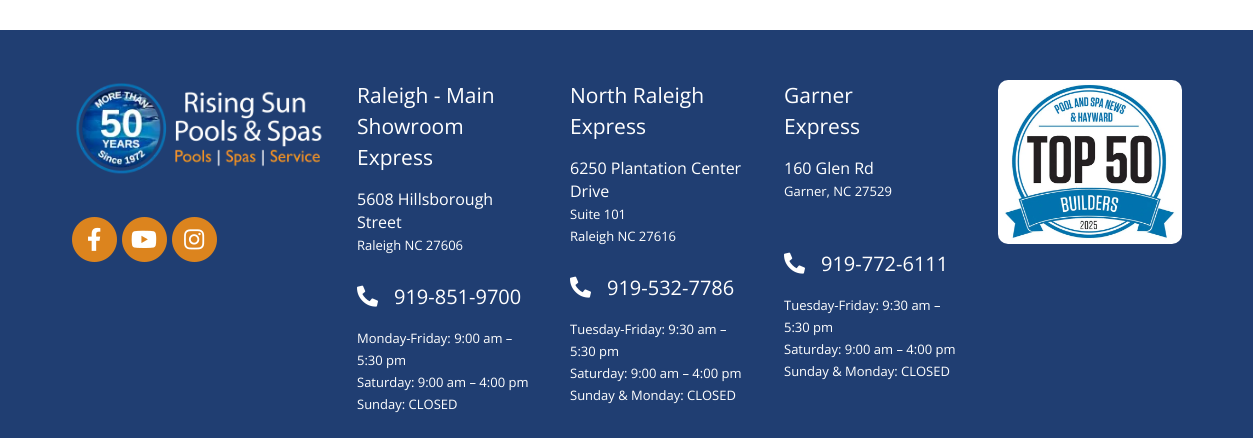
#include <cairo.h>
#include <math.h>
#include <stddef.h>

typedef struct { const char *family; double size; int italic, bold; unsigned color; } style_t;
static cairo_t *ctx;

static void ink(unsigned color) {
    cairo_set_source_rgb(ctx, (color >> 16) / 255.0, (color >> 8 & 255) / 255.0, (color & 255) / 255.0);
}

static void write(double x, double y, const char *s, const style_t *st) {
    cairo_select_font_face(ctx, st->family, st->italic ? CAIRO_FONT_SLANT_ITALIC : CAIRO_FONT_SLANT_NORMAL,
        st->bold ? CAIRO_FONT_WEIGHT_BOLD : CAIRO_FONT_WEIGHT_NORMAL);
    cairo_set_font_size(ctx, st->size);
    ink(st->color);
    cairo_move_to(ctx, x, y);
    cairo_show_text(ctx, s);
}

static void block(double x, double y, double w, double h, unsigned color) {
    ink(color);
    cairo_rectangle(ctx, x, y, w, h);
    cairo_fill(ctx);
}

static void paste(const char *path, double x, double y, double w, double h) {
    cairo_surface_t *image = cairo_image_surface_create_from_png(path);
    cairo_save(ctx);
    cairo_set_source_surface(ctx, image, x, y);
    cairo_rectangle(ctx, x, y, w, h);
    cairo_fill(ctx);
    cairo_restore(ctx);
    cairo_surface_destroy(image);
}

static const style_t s1 = {"Open Sans", 21, 0, 0, 0xffffff};
static const style_t s2 = {"Open Sans", 16, 0, 0, 0xffffff};
static const style_t s3 = {"Open Sans", 13, 0, 0, 0xffffff};
static const style_t s4 = {"Open Sans", 20, 0, 0, 0xffffff};

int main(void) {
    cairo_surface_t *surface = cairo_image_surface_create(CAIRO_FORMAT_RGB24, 1253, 438);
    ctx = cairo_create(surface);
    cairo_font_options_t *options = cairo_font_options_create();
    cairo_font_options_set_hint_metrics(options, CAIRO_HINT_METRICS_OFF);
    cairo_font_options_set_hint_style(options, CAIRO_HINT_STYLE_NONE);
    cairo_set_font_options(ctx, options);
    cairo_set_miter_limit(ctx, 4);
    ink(0xffffff);
    cairo_paint(ctx);
    block(0, 30, 1253, 408, 0x203e72);
    paste("pic1.png", 76, 83, 246, 91);
    ink(0xdc841e);
    cairo_arc(ctx, 94.5, 239.5, 22.5, 0, 2 * M_PI);
    cairo_fill(ctx);
    paste("pic2.png", 88, 227, 13, 24);
    cairo_arc(ctx, 144.5, 239.5, 22.5, 0, 2 * M_PI);
    cairo_fill(ctx);
    paste("pic3.png", 131, 230, 26, 18);
    cairo_arc(ctx, 194.5, 239.5, 22.5, 0, 2 * M_PI);
    cairo_fill(ctx);
    paste("pic4.png", 184, 229, 21, 21);
    write(357, 103, "Raleigh - Main", &s1);
    write(357, 134, "Showroom", &s1);
    write(357, 165, "Express", &s1);
    write(357, 205, "5608 Hillsborough", &s2);
    write(357, 228, "Street", &s2);
    write(357, 250, "Raleigh NC 27606", &s3);
    paste("pic5.png", 357, 285, 21, 22);
    write(394, 304, "919-851-9700", &s4);
    write(357, 343, "Monday-Friday: 9:00 am –", &s3);
    write(357, 365, "5:30 pm", &s3);
    write(357, 387, "Saturday: 9:00 am – 4:00 pm", &s3);
    write(357, 409, "Sunday: CLOSED", &s3);
    write(570, 103, "North Raleigh", &s1);
    write(570, 134, "Express", &s1);
    write(570, 174, "6250 Plantation Center", &s2);
    write(570, 197, "Drive", &s2);
    write(570, 219, "Suite 101", &s3);
    write(570, 241, "Raleigh NC 27616", &s3);
    paste("pic5.png", 570, 276, 21, 22);
    write(607, 295, "919-532-7786", &s4);
    write(570, 334, "Tuesday-Friday: 9:30 am –", &s3);
    write(570, 356, "5:30 pm", &s3);
    write(570, 378, "Saturday: 9:00 am – 4:00 pm", &s3);
    write(570, 400, "Sunday & Monday: CLOSED", &s3);
    write(784, 103, "Garner", &s1);
    write(784, 134, "Express", &s1);
    write(784, 174, "160 Glen Rd", &s2);
    write(784, 196, "Garner, NC 27529", &s3);
    paste("pic5.png", 784, 252, 21, 22);
    write(821, 271, "919-772-6111", &s4);
    write(784, 310, "Tuesday-Friday: 9:30 am –", &s3);
    write(784, 332, "5:30 pm", &s3);
    write(784, 354, "Saturday: 9:00 am – 4:00 pm", &s3);
    write(784, 376, "Sunday & Monday: CLOSED", &s3);
    paste("pic6.png", 998, 80, 184, 164);
    cairo_surface_write_to_png(surface, "screenshot.png");
    cairo_font_options_destroy(options);
    cairo_destroy(ctx);
    cairo_surface_destroy(surface);
    return 0;
}
